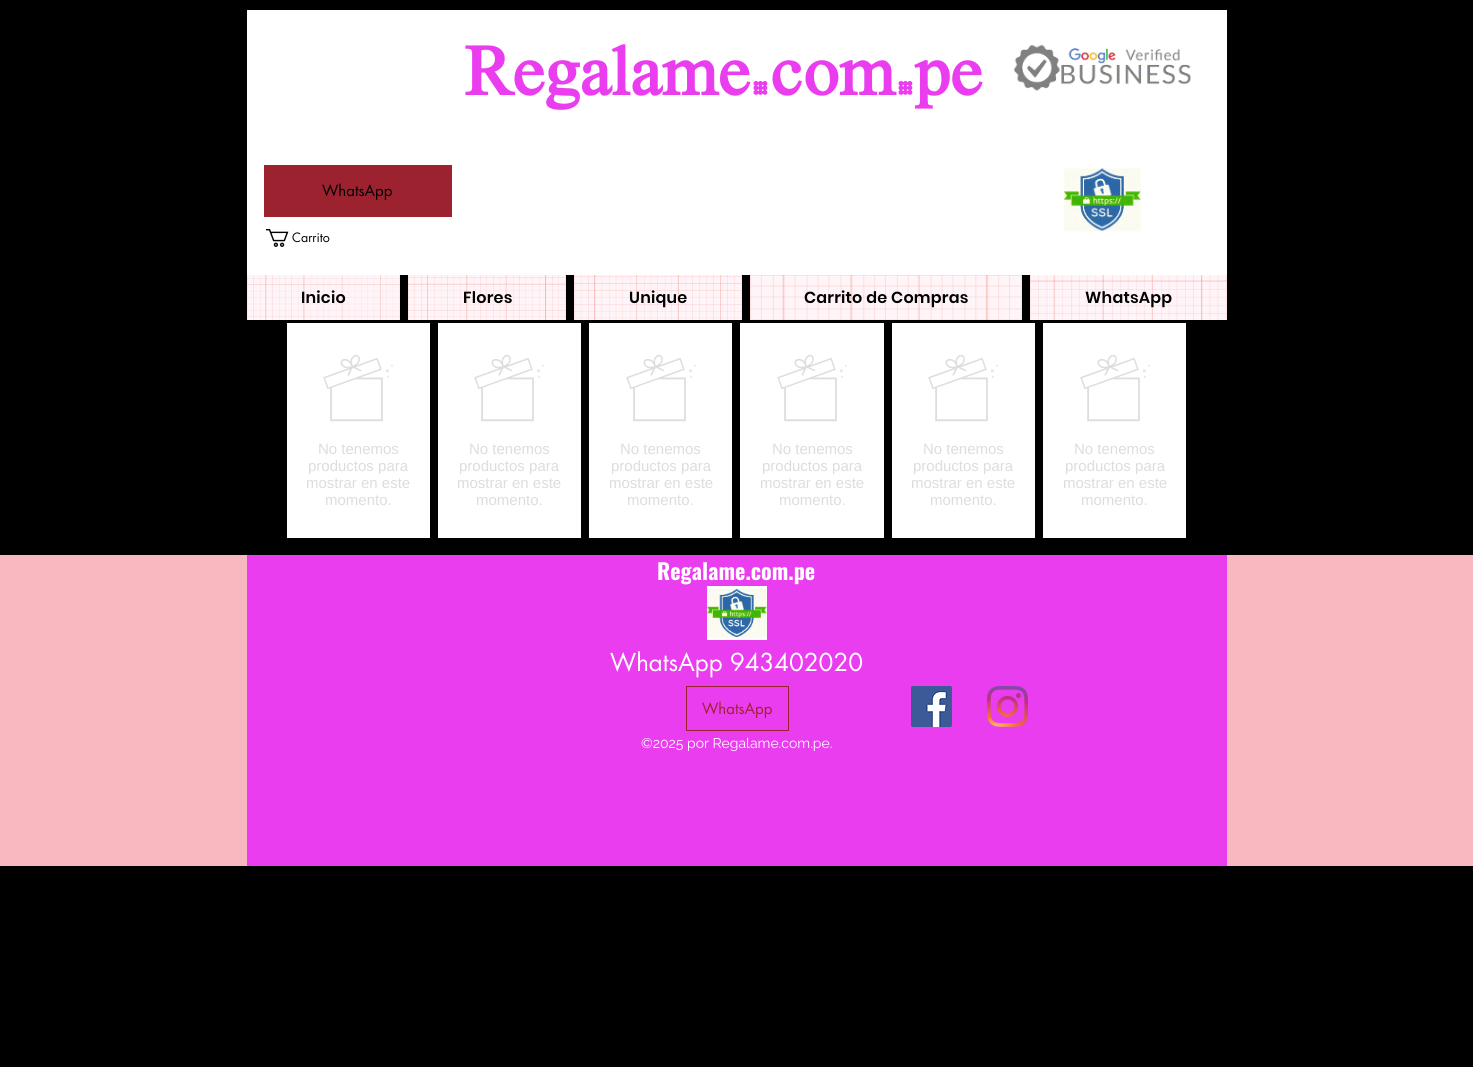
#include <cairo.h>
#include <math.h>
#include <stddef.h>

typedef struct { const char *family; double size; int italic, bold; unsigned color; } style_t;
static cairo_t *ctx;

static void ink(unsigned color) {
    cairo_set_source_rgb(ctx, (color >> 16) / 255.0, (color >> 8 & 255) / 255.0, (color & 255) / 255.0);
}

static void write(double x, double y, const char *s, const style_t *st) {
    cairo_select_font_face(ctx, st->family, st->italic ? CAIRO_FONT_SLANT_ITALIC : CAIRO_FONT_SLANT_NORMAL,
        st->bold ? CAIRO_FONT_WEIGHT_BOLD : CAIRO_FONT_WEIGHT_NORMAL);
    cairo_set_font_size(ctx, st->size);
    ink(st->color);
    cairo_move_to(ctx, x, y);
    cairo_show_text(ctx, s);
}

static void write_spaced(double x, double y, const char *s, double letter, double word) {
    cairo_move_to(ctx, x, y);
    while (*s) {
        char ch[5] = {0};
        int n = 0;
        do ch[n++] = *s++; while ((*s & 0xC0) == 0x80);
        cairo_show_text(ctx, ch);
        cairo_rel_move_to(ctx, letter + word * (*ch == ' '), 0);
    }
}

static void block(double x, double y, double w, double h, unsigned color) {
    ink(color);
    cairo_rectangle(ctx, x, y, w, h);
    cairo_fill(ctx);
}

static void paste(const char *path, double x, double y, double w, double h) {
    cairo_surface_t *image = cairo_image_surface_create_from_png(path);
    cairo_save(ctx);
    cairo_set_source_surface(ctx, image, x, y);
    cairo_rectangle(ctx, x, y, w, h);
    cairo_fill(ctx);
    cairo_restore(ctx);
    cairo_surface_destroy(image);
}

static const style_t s1 = {"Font", 70, 0, 1, 0xea3def};
static const style_t s2 = {"futura", 15, 0, 0, 0x000000};
static const style_t s3 = {"futura", 12.5, 0, 0, 0x000000};
static const style_t s4 = {"Liberation Sans", 15, 0, 0, 0xdddddd};
static const style_t s5 = {"Oswald", 22, 0, 1, 0xffffff};
static const style_t s6 = {"futura", 24, 0, 0, 0xffffff};
static const style_t s7 = {"futura", 15, 0, 0, 0x9d222f};
static const style_t s8 = {"Raleway", 14, 0, 0, 0xffffff};

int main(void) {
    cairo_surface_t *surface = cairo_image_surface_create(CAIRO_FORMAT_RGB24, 1473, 1067);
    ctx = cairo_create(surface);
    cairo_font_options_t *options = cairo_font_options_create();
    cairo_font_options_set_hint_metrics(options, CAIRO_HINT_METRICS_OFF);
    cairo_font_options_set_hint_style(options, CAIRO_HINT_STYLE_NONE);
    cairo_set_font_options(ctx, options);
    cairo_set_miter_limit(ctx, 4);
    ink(0x000000);
    cairo_paint(ctx);
    block(247, 10, 980, 265, 0xffffff);
    write(464, 95, "Regalame.com.pe", &s1);
    paste("pic1.png", 1014, 44, 177, 47);
    block(264, 165, 188, 52, 0x9d222f);
    write(322, 196, "WhatsApp", &s2);
    paste("pic2.png", 1064, 167, 77, 65);
    paste("pic3.png", 266, 229, 23, 18);
    write(292, 242, "Carrito", &s3);
    block(247, 275, 153, 45, 0xfff5f9);
    paste("pic4.png", 247, 275, 153, 45);
    cairo_select_font_face(ctx, "Poppins SemiBold", CAIRO_FONT_SLANT_NORMAL, CAIRO_FONT_WEIGHT_NORMAL);
    cairo_set_font_size(ctx, 16);
    ink(0x000000);
    write_spaced(301, 303, "Inicio", 0.2, 0);
    block(408, 275, 158, 45, 0xfff5f9);
    paste("pic5.png", 408, 275, 158, 45);
    ink(0x000000);
    write_spaced(463, 303, "Flores", 0.2, 0);
    block(574, 275, 168, 45, 0xfff5f9);
    paste("pic6.png", 574, 275, 168, 45);
    ink(0x000000);
    write_spaced(629, 303, "Unique", 0.2, 0);
    block(750, 275, 272, 45, 0xfff5f9);
    paste("pic7.png", 750, 275, 272, 45);
    ink(0x000000);
    write_spaced(804, 303, "Carrito de Compras", 0.2, 0);
    block(1030, 275, 197, 45, 0xfff5f9);
    paste("pic8.png", 1030, 275, 197, 45);
    ink(0x000000);
    write_spaced(1085, 303, "WhatsApp", 0.2, 0);
    block(287, 323, 143, 215, 0xffffff);
    paste("pic9.png", 323, 354, 70, 68);
    write(318, 454, "No tenemos", &s4);
    write(308, 471, "productos para", &s4);
    write(306, 488, "mostrar en este", &s4);
    write(325, 505, "momento.", &s4);
    block(438, 323, 143, 215, 0xffffff);
    paste("pic9.png", 474, 354, 70, 68);
    write(469, 454, "No tenemos", &s4);
    write(459, 471, "productos para", &s4);
    write(457, 488, "mostrar en este", &s4);
    write(476, 505, "momento.", &s4);
    block(589, 323, 143, 215, 0xffffff);
    paste("pic9.png", 626, 354, 70, 68);
    write(620, 454, "No tenemos", &s4);
    write(611, 471, "productos para", &s4);
    write(609, 488, "mostrar en este", &s4);
    write(627, 505, "momento.", &s4);
    block(740, 323, 144, 215, 0xffffff);
    paste("pic9.png", 777, 354, 70, 68);
    write(772, 454, "No tenemos", &s4);
    write(762, 471, "productos para", &s4);
    write(760, 488, "mostrar en este", &s4);
    write(779, 505, "momento.", &s4);
    block(892, 323, 143, 215, 0xffffff);
    paste("pic9.png", 928, 354, 70, 68);
    write(923, 454, "No tenemos", &s4);
    write(913, 471, "productos para", &s4);
    write(911, 488, "mostrar en este", &s4);
    write(930, 505, "momento.", &s4);
    block(1043, 323, 143, 215, 0xffffff);
    paste("pic9.png", 1080, 354, 70, 68);
    write(1074, 454, "No tenemos", &s4);
    write(1065, 471, "productos para", &s4);
    write(1063, 488, "mostrar en este", &s4);
    write(1081, 505, "momento.", &s4);
    block(0, 555, 1473, 311, 0xf8b8bf);
    block(247, 555, 980, 311, 0xea3def);
    write(657, 580, "Regalame.com.pe", &s5);
    paste("pic10.png", 707, 586, 60, 54);
    write(610, 671, "WhatsApp 943402020", &s6);
    cairo_rectangle(ctx, 686.5, 686.5, 102, 44);
    ink(0x9d222f);
    cairo_set_line_width(ctx, 1);
    cairo_stroke(ctx);
    write(702, 714, "WhatsApp", &s7);
    paste("pic11.png", 911, 686, 41, 41);
    paste("pic12.png", 987, 686, 41, 41);
    write(641, 748, "©2025 por Regalame.com.pe.", &s8);
    cairo_surface_write_to_png(surface, "screenshot.png");
    cairo_font_options_destroy(options);
    cairo_destroy(ctx);
    cairo_surface_destroy(surface);
    return 0;
}
